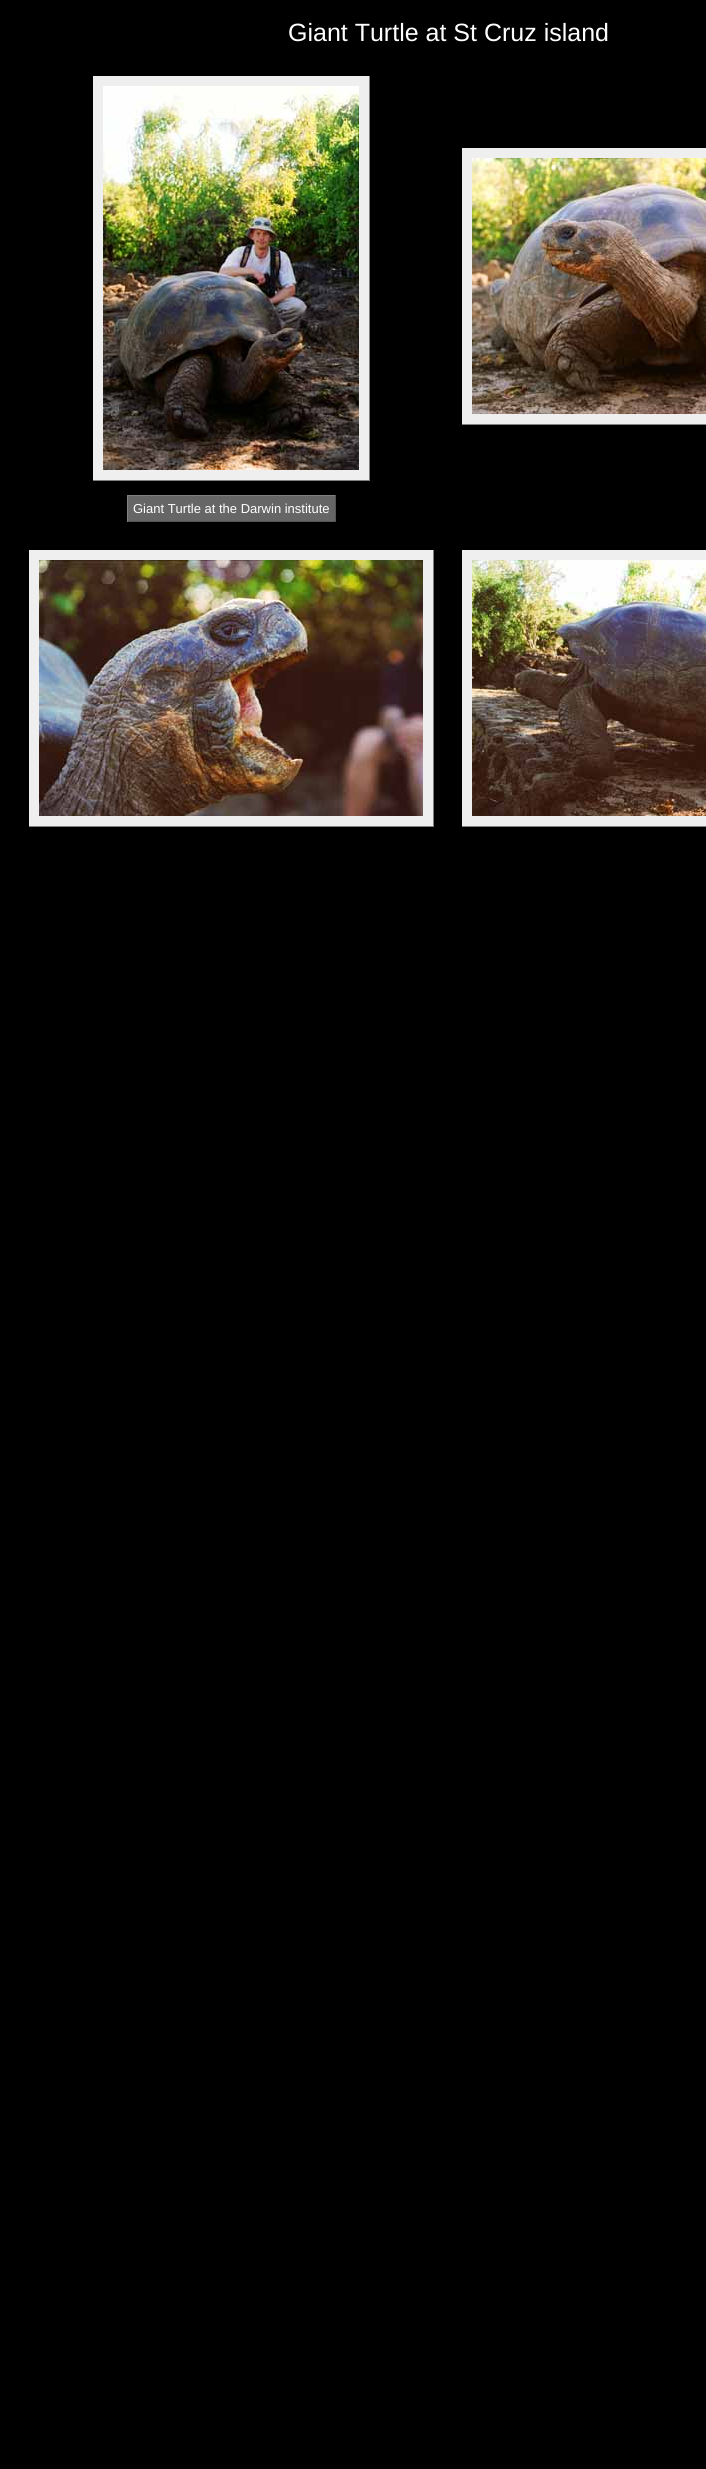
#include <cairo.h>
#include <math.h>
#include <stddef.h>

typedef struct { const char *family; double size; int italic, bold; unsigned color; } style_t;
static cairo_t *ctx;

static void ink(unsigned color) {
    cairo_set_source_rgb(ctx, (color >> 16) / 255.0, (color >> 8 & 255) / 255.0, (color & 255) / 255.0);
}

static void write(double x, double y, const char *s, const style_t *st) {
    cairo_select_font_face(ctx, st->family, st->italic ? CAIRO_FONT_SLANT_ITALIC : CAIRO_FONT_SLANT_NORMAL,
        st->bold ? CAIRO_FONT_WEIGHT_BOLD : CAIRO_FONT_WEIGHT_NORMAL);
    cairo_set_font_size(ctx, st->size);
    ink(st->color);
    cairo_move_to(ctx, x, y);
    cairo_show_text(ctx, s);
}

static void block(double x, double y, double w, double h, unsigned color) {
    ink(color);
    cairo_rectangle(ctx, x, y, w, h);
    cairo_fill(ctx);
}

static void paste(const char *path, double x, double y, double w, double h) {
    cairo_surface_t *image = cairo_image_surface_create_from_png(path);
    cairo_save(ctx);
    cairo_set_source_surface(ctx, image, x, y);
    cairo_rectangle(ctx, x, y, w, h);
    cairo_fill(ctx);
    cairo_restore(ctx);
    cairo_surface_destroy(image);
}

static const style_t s1 = {"Liberation Sans", 25, 0, 0, 0xffffff};
static const style_t s2 = {"Liberation Sans", 13, 0, 0, 0xffffff};

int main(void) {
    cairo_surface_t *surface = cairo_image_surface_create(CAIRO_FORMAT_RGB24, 706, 2469);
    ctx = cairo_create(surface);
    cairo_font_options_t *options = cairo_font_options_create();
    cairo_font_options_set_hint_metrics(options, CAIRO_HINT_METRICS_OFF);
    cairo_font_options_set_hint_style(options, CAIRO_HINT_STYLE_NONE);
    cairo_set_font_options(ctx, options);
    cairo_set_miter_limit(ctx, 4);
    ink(0x000000);
    cairo_paint(ctx);
    write(288, 41, "Giant Turtle at St Cruz island", &s1);
    block(462, 148, 244, 276, 0xefefef);
    block(462, 424, 244, 1, 0x808080);
    paste("pic1.png", 472, 158, 234, 256);
    block(93, 76, 276, 404, 0xefefef);
    block(369, 76, 1, 405, 0x808080);
    block(93, 480, 277, 1, 0x808080);
    paste("pic2.png", 103, 86, 256, 384);
    block(128, 496, 207, 25, 0x666666);
    block(127, 495, 209, 1, 0x808080);
    block(335, 495, 1, 27, 0x555555);
    block(127, 521, 209, 1, 0x555555);
    block(127, 495, 1, 27, 0x808080);
    write(133, 513, "Giant Turtle at the Darwin institute", &s2);
    block(29, 550, 404, 276, 0xefefef);
    block(433, 550, 1, 277, 0x808080);
    block(29, 826, 405, 1, 0x808080);
    paste("pic3.png", 39, 560, 384, 256);
    block(462, 550, 244, 276, 0xefefef);
    block(462, 826, 244, 1, 0x808080);
    paste("pic4.png", 472, 560, 234, 256);
    cairo_surface_write_to_png(surface, "screenshot.png");
    cairo_font_options_destroy(options);
    cairo_destroy(ctx);
    cairo_surface_destroy(surface);
    return 0;
}
